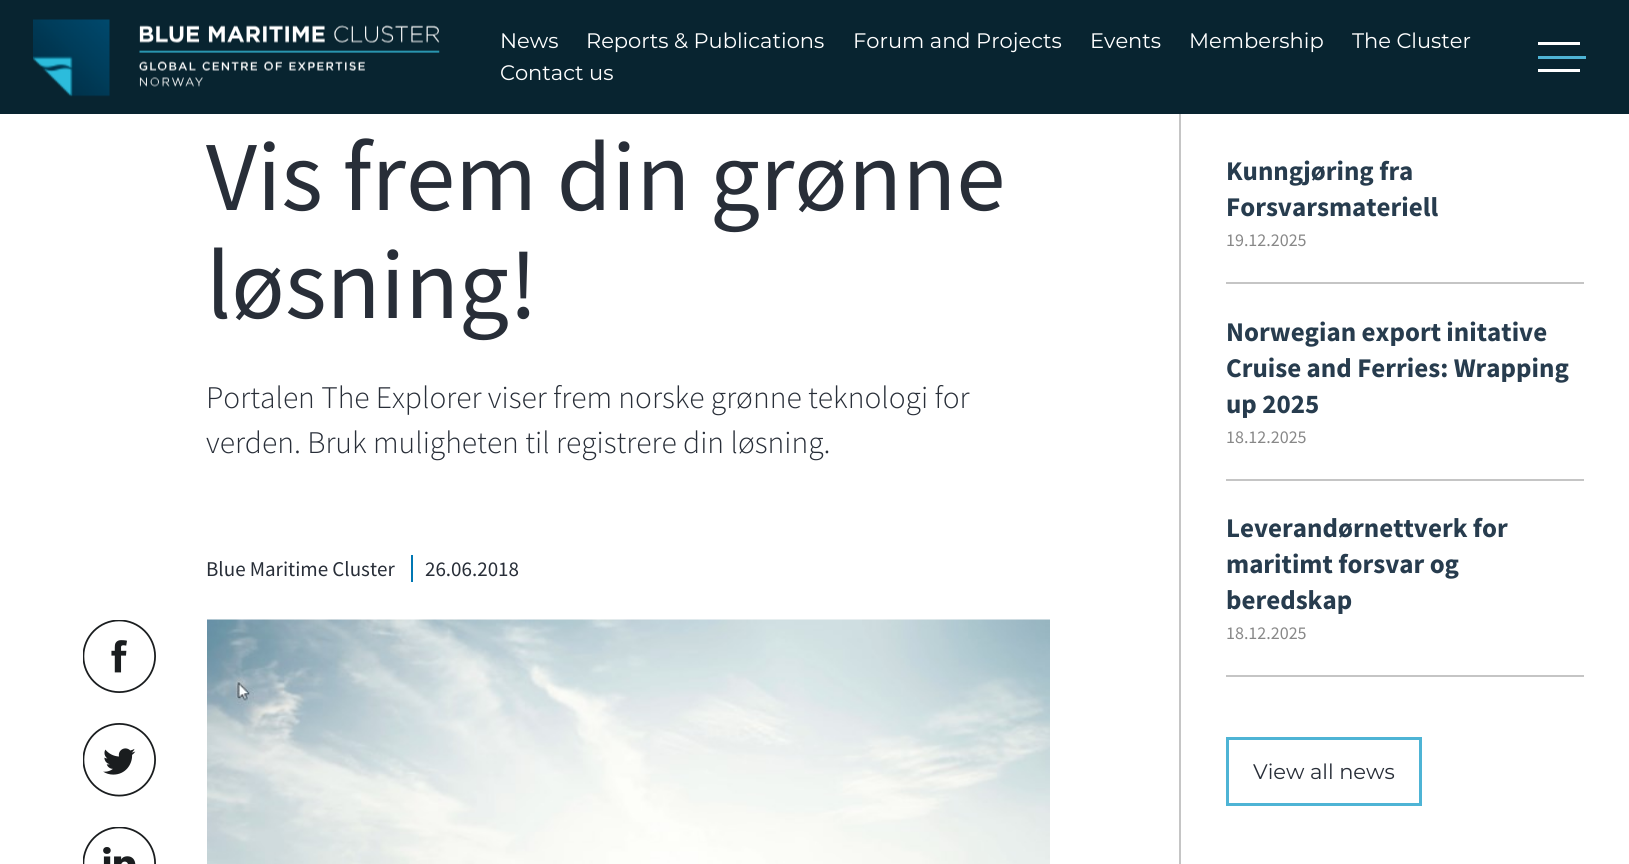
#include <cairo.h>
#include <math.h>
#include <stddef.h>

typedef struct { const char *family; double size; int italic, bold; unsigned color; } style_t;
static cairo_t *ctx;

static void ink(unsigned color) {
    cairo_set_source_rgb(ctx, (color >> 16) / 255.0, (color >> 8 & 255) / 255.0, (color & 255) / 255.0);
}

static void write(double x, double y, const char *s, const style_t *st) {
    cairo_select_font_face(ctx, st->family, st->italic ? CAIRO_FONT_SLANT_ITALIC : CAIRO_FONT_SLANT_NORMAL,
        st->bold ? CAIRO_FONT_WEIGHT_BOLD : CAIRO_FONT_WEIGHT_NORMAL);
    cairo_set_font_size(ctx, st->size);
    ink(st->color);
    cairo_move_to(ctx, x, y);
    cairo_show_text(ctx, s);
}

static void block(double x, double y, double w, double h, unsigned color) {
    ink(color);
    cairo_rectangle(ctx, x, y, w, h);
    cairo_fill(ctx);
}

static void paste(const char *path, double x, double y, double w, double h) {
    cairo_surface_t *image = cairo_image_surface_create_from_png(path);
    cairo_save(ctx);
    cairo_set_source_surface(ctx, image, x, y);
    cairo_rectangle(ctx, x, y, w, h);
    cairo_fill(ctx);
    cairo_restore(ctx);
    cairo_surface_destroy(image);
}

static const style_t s1 = {"Montserrat Thin", 21, 0, 0, 0xffffff};
static const style_t s2 = {"Source Sans Pro", 99, 0, 0, 0x282e38};
static const style_t s3 = {"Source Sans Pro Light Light", 31.5, 0, 0, 0x282e38};
static const style_t s4 = {"Source Sans Pro", 21, 0, 0, 0x282e38};
static const style_t s5 = {"Source Sans Pro", 27, 0, 1, 0x273c4e};
static const style_t s6 = {"Source Sans Pro", 18, 0, 0, 0x888888};
static const style_t s7 = {"Montserrat Thin", 21, 0, 0, 0x282e38};

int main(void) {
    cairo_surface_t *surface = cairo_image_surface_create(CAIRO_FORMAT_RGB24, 1629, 864);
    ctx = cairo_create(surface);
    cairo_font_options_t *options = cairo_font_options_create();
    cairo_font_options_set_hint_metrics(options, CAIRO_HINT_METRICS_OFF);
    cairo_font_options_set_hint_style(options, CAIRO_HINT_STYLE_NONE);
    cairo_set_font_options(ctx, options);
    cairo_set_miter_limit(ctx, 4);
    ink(0xffffff);
    cairo_paint(ctx);
    block(0, 0, 1629, 114, 0x082430);
    paste("pic1.png", 33, 19, 407, 78);
    write(500, 48, "News", &s1);
    write(586, 48, "Reports & Publications", &s1);
    write(853, 48, "Forum and Projects", &s1);
    write(1090, 48, "Events", &s1);
    write(1189, 48, "Membership", &s1);
    write(1352, 48, "The Cluster", &s1);
    write(500, 80, "Contact us", &s1);
    cairo_set_fill_rule(ctx, CAIRO_FILL_RULE_EVEN_ODD);
    cairo_new_path(ctx);
    cairo_move_to(ctx, 1538, 69);
    cairo_line_to(ctx, 1580, 69);
    cairo_line_to(ctx, 1580, 72);
    cairo_line_to(ctx, 1538, 72);
    cairo_close_path(ctx);
    cairo_move_to(ctx, 1538, 42);
    cairo_line_to(ctx, 1580, 42);
    cairo_line_to(ctx, 1580, 45);
    cairo_line_to(ctx, 1538, 45);
    cairo_close_path(ctx);
    cairo_fill(ctx);
    block(1538, 56, 48, 3, 0x4eb4d5);
    write(206, 210, "Vis frem din grønne", &s2);
    write(206, 318, "løsning!", &s2);
    write(206, 408, "Portalen The Explorer viser frem norske grønne teknologi for", &s3);
    write(206, 453, "verden. Bruk muligheten til registrere din løsning.", &s3);
    write(206, 576, "Blue Maritime Cluster", &s4);
    write(425, 576, "26.06.2018", &s4);
    block(411, 555, 2, 27, 0x0077b3);
    paste("pic2.png", 83, 620, 73, 73);
    paste("pic3.png", 83, 723, 73, 74);
    paste("pic4.png", 83, 827, 73, 37);
    paste("pic5.png", 207, 619, 843, 245);
    block(1179, 114, 2, 750, 0xc5c5c5);
    block(1226, 282, 358, 2, 0xc5c5c5);
    write(1226, 180, "Kunngjøring fra", &s5);
    write(1226, 216, "Forsvarsmateriell", &s5);
    write(1226, 246, "19.12.2025", &s6);
    block(1226, 479, 358, 2, 0xc5c5c5);
    write(1226, 341, "Norwegian export initative", &s5);
    write(1226, 377, "Cruise and Ferries: Wrapping", &s5);
    write(1226, 413, "up 2025", &s5);
    write(1226, 443, "18.12.2025", &s6);
    block(1226, 675, 358, 2, 0xc5c5c5);
    write(1226, 537, "Leverandørnettverk for", &s5);
    write(1226, 573, "maritimt forsvar og", &s5);
    write(1226, 609, "beredskap", &s5);
    write(1226, 639, "18.12.2025", &s6);
    cairo_rectangle(ctx, 1227.5, 738.5, 193, 66);
    ink(0x4eb4d5);
    cairo_set_line_width(ctx, 3);
    cairo_stroke(ctx);
    write(1253, 779, "View all news", &s7);
    cairo_surface_write_to_png(surface, "screenshot.png");
    cairo_font_options_destroy(options);
    cairo_destroy(ctx);
    cairo_surface_destroy(surface);
    return 0;
}
